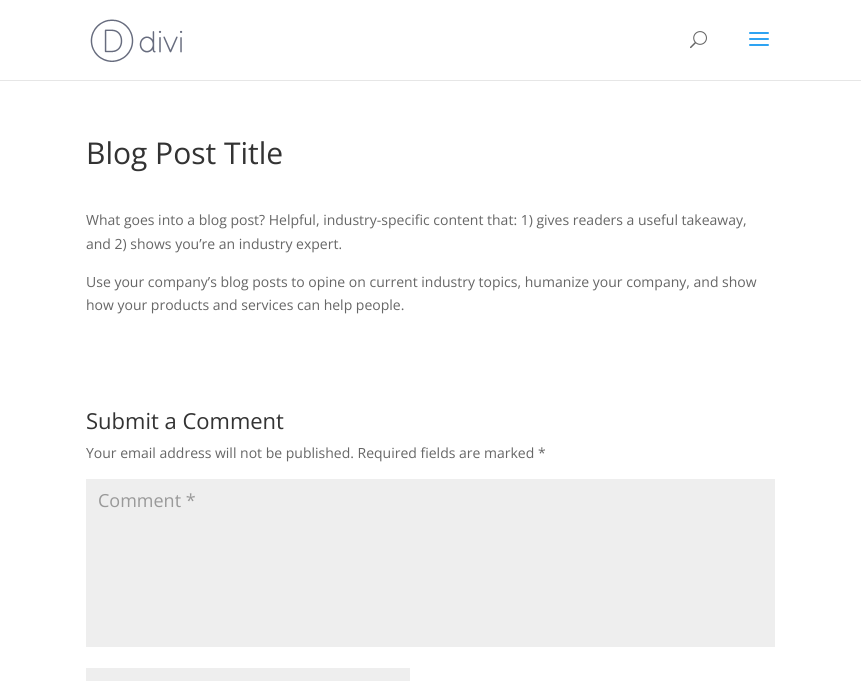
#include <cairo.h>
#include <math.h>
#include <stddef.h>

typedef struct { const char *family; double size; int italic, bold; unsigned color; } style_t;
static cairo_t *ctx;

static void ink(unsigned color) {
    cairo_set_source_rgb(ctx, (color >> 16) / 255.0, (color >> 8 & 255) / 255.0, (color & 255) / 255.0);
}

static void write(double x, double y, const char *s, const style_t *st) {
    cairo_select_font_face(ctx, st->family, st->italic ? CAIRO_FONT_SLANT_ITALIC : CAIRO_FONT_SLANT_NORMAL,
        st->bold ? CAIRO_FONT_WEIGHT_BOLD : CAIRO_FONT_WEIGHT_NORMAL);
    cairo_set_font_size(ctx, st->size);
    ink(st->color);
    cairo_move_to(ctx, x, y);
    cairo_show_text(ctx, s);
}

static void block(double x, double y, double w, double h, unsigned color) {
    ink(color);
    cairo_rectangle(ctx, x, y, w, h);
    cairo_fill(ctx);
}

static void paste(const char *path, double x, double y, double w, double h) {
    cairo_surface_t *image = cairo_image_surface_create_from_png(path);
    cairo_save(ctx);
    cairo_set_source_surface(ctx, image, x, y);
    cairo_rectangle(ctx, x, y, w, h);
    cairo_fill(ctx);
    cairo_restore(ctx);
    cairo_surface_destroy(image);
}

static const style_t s1 = {"Open Sans", 30, 0, 0, 0x333333};
static const style_t s2 = {"Open Sans", 14, 0, 0, 0x666666};
static const style_t s3 = {"Open Sans", 22, 0, 0, 0x333333};
static const style_t s4 = {"Open Sans", 18, 0, 0, 0x999999};

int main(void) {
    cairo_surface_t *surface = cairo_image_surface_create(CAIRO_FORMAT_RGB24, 861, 681);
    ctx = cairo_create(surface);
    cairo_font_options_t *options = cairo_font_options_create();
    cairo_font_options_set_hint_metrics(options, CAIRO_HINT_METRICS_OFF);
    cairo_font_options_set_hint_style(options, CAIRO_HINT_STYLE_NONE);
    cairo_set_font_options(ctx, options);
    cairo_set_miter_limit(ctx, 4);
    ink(0xffffff);
    cairo_paint(ctx);
    block(0, 80, 861, 1, 0xe6e6e6);
    paste("pic1.png", 90, 19, 93, 43);
    paste("pic2.png", 690, 31, 17, 18);
    paste("pic3.png", 749, 32, 20, 14);
    write(86, 164, "Blog Post Title", &s1);
    write(86, 225, "What goes into a blog post? Helpful, industry-specific content that: 1) gives readers a useful takeaway,", &s2);
    write(86, 249, "and 2) shows you’re an industry expert.", &s2);
    write(86, 287, "Use your company’s blog posts to opine on current industry topics, humanize your company, and show", &s2);
    write(86, 310, "how your products and services can help people.", &s2);
    write(86, 429, "Submit a Comment", &s3);
    write(86, 458, "Your email address will not be published. Required fields are marked *", &s2);
    block(86, 479, 689, 168, 0xeeeeee);
    write(98, 507, "Comment *", &s4);
    block(86, 668, 324, 13, 0xeeeeee);
    cairo_surface_write_to_png(surface, "screenshot.png");
    cairo_font_options_destroy(options);
    cairo_destroy(ctx);
    cairo_surface_destroy(surface);
    return 0;
}
